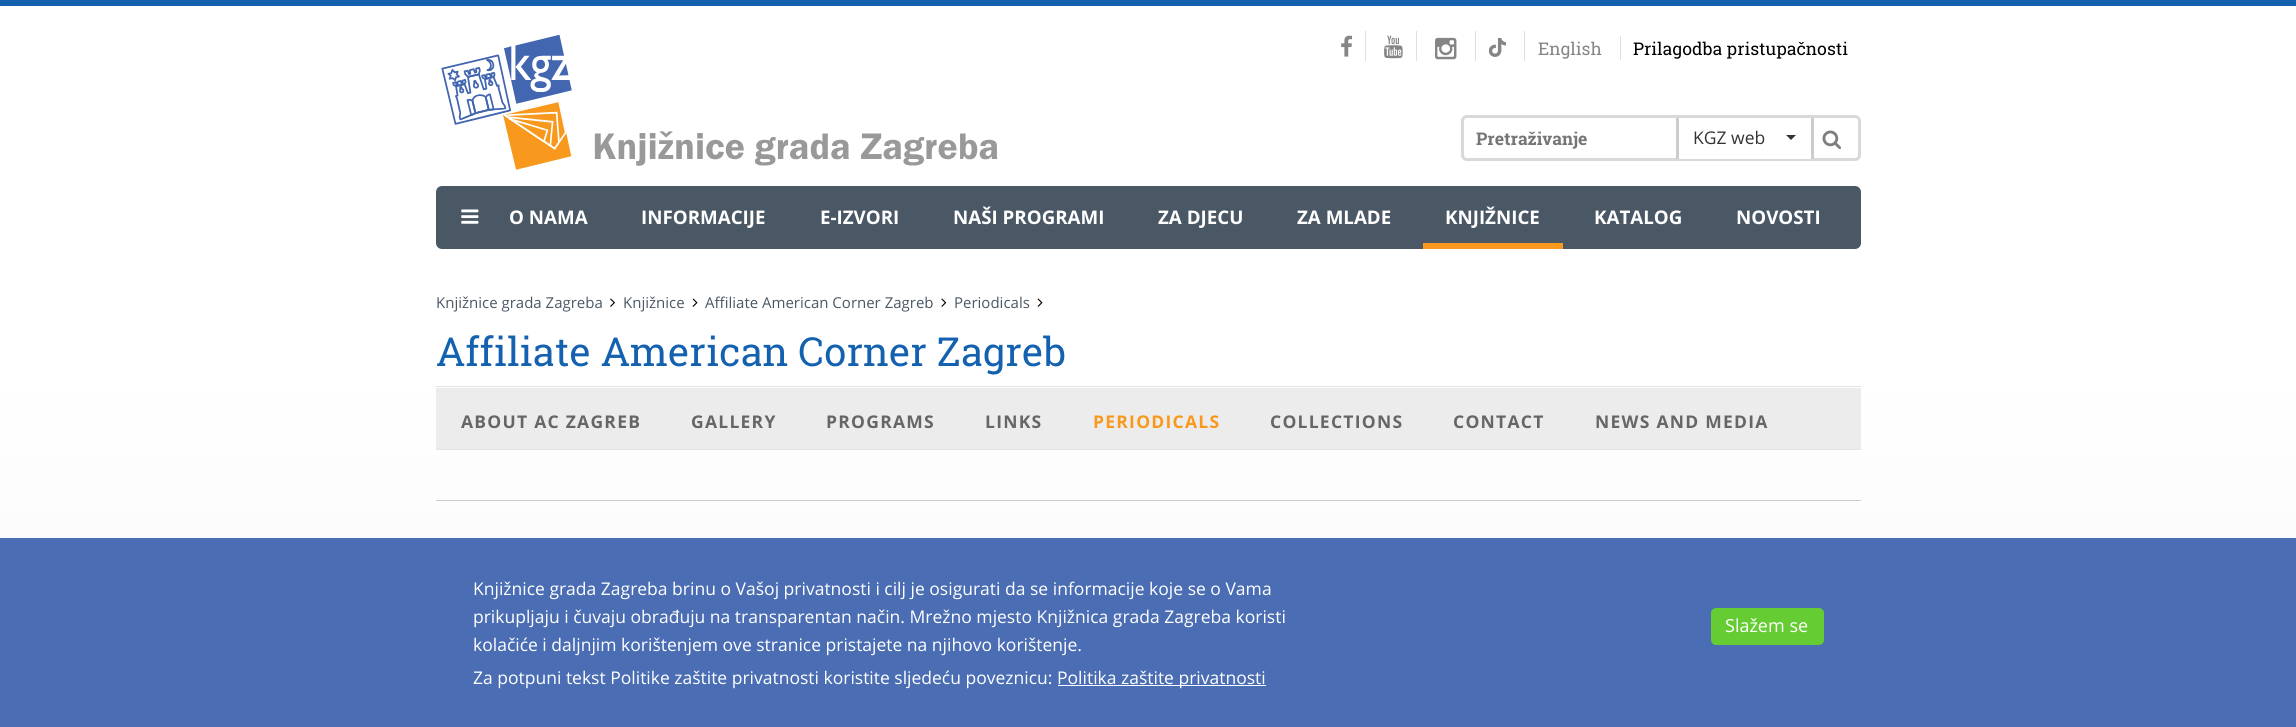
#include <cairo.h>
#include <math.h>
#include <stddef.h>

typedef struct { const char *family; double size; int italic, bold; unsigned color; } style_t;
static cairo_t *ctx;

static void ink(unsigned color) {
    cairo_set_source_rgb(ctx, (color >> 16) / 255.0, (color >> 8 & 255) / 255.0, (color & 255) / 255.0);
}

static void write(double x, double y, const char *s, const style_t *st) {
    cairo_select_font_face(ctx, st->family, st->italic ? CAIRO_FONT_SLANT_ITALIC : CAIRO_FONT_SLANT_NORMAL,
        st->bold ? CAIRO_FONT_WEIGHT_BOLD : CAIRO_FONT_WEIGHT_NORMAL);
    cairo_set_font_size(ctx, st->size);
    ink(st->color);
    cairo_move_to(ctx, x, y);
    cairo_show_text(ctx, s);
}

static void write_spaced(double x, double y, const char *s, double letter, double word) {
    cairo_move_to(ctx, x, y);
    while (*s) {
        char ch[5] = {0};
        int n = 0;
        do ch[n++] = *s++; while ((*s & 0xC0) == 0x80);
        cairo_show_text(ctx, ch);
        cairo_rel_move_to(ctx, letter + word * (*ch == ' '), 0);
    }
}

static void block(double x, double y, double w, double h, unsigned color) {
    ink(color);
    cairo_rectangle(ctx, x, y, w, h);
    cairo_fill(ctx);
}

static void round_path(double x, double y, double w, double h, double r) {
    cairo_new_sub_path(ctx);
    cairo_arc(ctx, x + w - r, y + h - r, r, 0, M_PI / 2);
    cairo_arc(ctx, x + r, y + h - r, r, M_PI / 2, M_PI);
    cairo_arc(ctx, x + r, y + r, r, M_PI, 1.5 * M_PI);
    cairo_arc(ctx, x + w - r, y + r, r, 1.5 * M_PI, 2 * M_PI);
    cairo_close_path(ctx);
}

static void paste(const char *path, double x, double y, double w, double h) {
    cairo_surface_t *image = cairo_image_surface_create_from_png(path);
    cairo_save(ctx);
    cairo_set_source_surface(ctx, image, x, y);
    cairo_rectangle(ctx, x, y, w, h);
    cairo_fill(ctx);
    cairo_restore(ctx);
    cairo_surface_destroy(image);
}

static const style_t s1 = {"Roboto Slab", 17.5, 0, 0, 0x858585};
static const style_t s2 = {"Roboto Slab", 17.5, 0, 0, 0x000000};
static const style_t s3 = {"Roboto Slab", 17.5, 0, 1, 0x757575};
static const style_t s4 = {"Open Sans", 17.5, 0, 0, 0x333333};
static const style_t s5 = {"Open Sans", 18.75, 0, 1, 0xffffff};
static const style_t s6 = {"Open Sans", 15, 0, 0, 0x4a5865};
static const style_t s7 = {"Roboto Slab", 40, 0, 0, 0x1361af};
static const style_t s8 = {"Open Sans", 17.5, 0, 0, 0xffffff};
static const style_t s9 = {"Open Sans", 18, 0, 0, 0xffffff};

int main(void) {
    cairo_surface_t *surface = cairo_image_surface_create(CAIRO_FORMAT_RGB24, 2296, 727);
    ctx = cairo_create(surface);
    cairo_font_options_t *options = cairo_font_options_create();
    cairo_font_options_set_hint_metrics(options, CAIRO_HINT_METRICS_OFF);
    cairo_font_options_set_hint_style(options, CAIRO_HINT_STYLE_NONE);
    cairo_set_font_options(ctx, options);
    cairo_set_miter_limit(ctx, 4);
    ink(0xffffff);
    cairo_paint(ctx);
    paste("pic1.png", 0, 6, 2296, 721);
    block(0, 0, 2296, 6, 0x1361af);
    paste("pic2.png", 441, 34, 557, 136);
    block(1365, 31, 1, 30, 0xdfdfdf);
    paste("pic3.png", 1341, 35, 12, 22);
    block(1416, 31, 1, 30, 0xdfdfdf);
    paste("pic4.png", 1384, 35, 19, 24);
    block(1475, 31, 1, 30, 0xdfdfdf);
    paste("pic5.png", 1435, 37, 22, 23);
    paste("pic6.png", 1489, 38, 17, 19);
    block(1524, 31, 1, 30, 0xdfdfdf);
    write(1538, 55, "English", &s1);
    write(1633, 55, "Prilagodba pristupačnosti", &s2);
    block(1620, 36, 1, 24, 0xdfdfdf);
    round_path(1462.5, 116.5, 397, 43, 4.5);
    ink(0xd9d9d9);
    cairo_set_line_width(ctx, 3);
    cairo_stroke(ctx);
    write(1476, 145, "Pretraživanje", &s3);
    block(1679, 158, 132, 1, 0xffffff);
    block(1811, 118, 3, 41, 0xcccccc);
    block(1676, 118, 3, 41, 0xcccccc);
    write(1693, 144, "KGZ web", &s4);
    cairo_new_path(ctx);
    cairo_move_to(ctx, 1786, 135);
    cairo_line_to(ctx, 1796, 135);
    cairo_line_to(ctx, 1791, 140);
    cairo_close_path(ctx);
    cairo_fill(ctx);
    paste("pic7.png", 1822, 130, 19, 20);
    ink(0x4a5865);
    round_path(436, 186, 1425, 63, 6);
    cairo_fill(ctx);
    paste("pic8.png", 461, 209, 18, 15);
    write(509, 224, "O NAMA", &s5);
    write(641, 224, "INFORMACIJE", &s5);
    write(820, 224, "E-IZVORI", &s5);
    write(953, 224, "NAŠI PROGRAMI", &s5);
    write(1158, 224, "ZA DJECU", &s5);
    write(1297, 224, "ZA MLADE", &s5);
    block(1423, 243, 140, 6, 0xf8991d);
    write(1445, 224, "KNJIŽNICE", &s5);
    write(1594, 224, "KATALOG", &s5);
    write(1736, 224, "NOVOSTI", &s5);
    write(436, 308, "Knjižnice grada Zagreba", &s6);
    paste("pic9.png", 610, 298, 5, 9);
    write(623, 308, "Knjižnice", &s6);
    paste("pic10.png", 692, 298, 6, 9);
    write(705, 308, "Affiliate American Corner Zagreb", &s6);
    paste("pic11.png", 941, 298, 6, 9);
    write(954, 308, "Periodicals", &s6);
    paste("pic10.png", 1037, 298, 6, 9);
    block(436, 386, 1425, 1, 0xe4e4e4);
    write(436, 366, "Affiliate American Corner Zagreb", &s7);
    block(436, 388, 1425, 61, 0xececec);
    block(436, 449, 1425, 1, 0xe4e4e4);
    cairo_select_font_face(ctx, "Open Sans", CAIRO_FONT_SLANT_NORMAL, CAIRO_FONT_WEIGHT_BOLD);
    cairo_set_font_size(ctx, 17.5);
    ink(0x666666);
    write_spaced(461, 428, "ABOUT AC ZAGREB", 1.25, 0);
    write_spaced(691, 428, "GALLERY", 1.25, 0);
    write_spaced(826, 428, "PROGRAMS", 1.25, 0);
    write_spaced(985, 428, "LINKS", 1.25, 0);
    ink(0xf8991d);
    write_spaced(1093, 428, "PERIODICALS", 1.25, 0);
    ink(0x666666);
    write_spaced(1270, 428, "COLLECTIONS", 1.25, 0);
    write_spaced(1453, 428, "CONTACT", 1.25, 0);
    write_spaced(1595, 428, "NEWS AND MEDIA", 1.25, 0);
    block(436, 500, 1425, 1, 0xcccccc);
    cairo_set_source_rgba(ctx, 0.259, 0.4, 0.69, 0.95);
    cairo_rectangle(ctx, 0, 538, 2296, 189);
    cairo_fill(ctx);
    write(473, 595, "Knjižnice grada Zagreba brinu o Vašoj privatnosti i cilj je osigurati da se informacije koje se o Vama", &s8);
    write(473, 623, "prikupljaju i čuvaju obrađuju na transparentan način. Mrežno mjesto Knjižnica grada Zagreba koristi", &s8);
    write(473, 651, "kolačiće i daljnjim korištenjem ove stranice pristajete na njihovo korištenje.", &s8);
    write(473, 684, "Za potpuni tekst Politike zaštite privatnosti koristite sljedeću poveznicu:", &s8);
    block(1058, 685, 208, 1, 0xffffff);
    write(1057, 684, "Politika zaštite privatnosti", &s8);
    ink(0x66cc33);
    round_path(1711, 608, 113, 37, 5);
    cairo_fill(ctx);
    write(1725, 632, "Slažem se", &s9);
    cairo_surface_write_to_png(surface, "screenshot.png");
    cairo_font_options_destroy(options);
    cairo_destroy(ctx);
    cairo_surface_destroy(surface);
    return 0;
}
